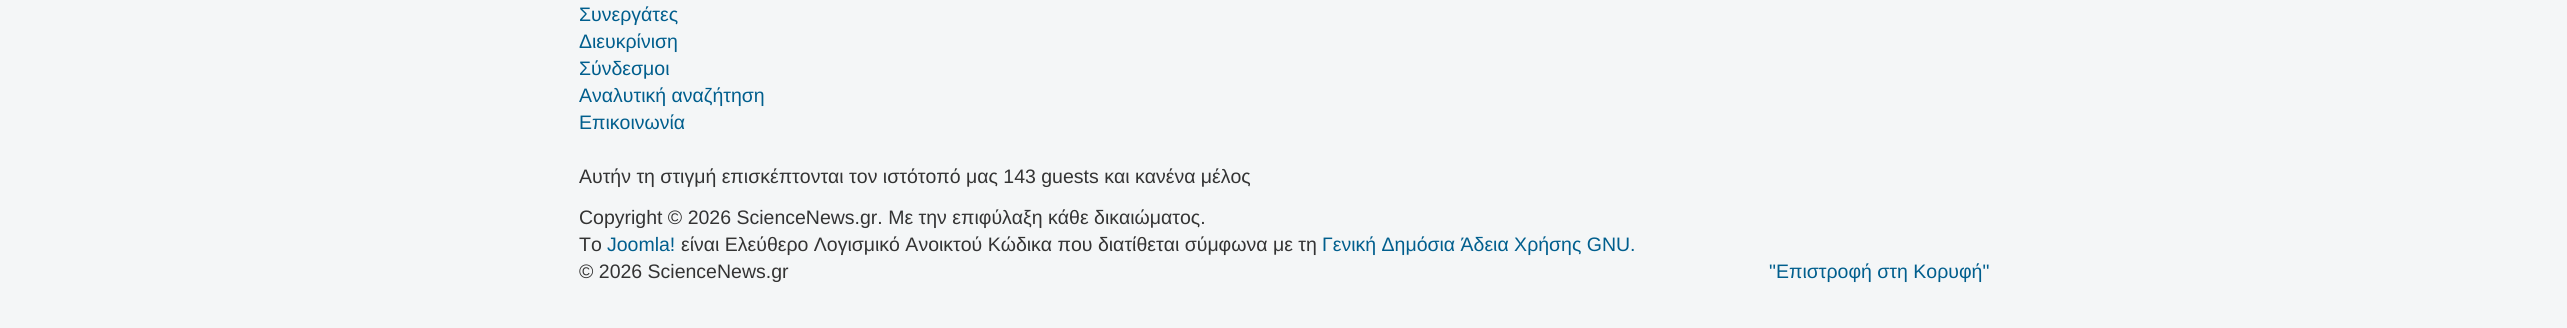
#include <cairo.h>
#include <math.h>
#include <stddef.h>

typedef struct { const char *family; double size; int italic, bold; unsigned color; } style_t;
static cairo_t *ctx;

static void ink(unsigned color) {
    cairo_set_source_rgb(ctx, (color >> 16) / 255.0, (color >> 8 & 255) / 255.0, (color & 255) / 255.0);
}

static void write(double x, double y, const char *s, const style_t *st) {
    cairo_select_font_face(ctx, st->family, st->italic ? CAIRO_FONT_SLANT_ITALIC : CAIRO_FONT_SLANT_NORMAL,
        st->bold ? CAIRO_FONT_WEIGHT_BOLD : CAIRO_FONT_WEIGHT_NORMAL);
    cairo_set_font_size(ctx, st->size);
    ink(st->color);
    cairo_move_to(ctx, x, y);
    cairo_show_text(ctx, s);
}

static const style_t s1 = {"Liberation Sans", 19.5, 0, 0, 0x005e8d};
static const style_t s2 = {"Liberation Sans", 19.5, 0, 0, 0x333333};

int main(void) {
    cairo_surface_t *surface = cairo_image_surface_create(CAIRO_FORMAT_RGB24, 2567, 328);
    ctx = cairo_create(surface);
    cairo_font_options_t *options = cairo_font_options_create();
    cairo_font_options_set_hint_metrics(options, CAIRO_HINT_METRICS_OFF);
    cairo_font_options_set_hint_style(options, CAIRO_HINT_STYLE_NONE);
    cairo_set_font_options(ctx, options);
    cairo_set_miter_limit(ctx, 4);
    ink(0xf4f6f7);
    cairo_paint(ctx);
    write(579, 21, "Συνεργάτες", &s1);
    write(579, 48, "Διευκρίνιση", &s1);
    write(579, 75, "Σύνδεσμοι", &s1);
    write(579, 102, "Αναλυτική αναζήτηση", &s1);
    write(579, 129, "Επικοινωνία", &s1);
    write(579, 183, "Αυτήν τη στιγμή επισκέπτονται τον ιστότοπό μας 143 guests και κανένα μέλος", &s2);
    write(579, 224, "Copyright © 2026 ScienceNews.gr. Με την επιφύλαξη κάθε δικαιώματος.", &s2);
    write(579, 251, "Το", &s2);
    write(607, 251, "Joomla!", &s1);
    write(681, 251, "είναι Ελεύθερο Λογισμικό Ανοικτού Κώδικα που διατίθεται σύμφωνα με τη", &s2);
    write(1322, 251, "Γενική Δημόσια Άδεια Χρήσης GNU.", &s1);
    write(579, 278, "© 2026 ScienceNews.gr", &s2);
    write(1769, 278, "\"Επιστροφή στη Κορυφή\"", &s1);
    cairo_surface_write_to_png(surface, "screenshot.png");
    cairo_font_options_destroy(options);
    cairo_destroy(ctx);
    cairo_surface_destroy(surface);
    return 0;
}
